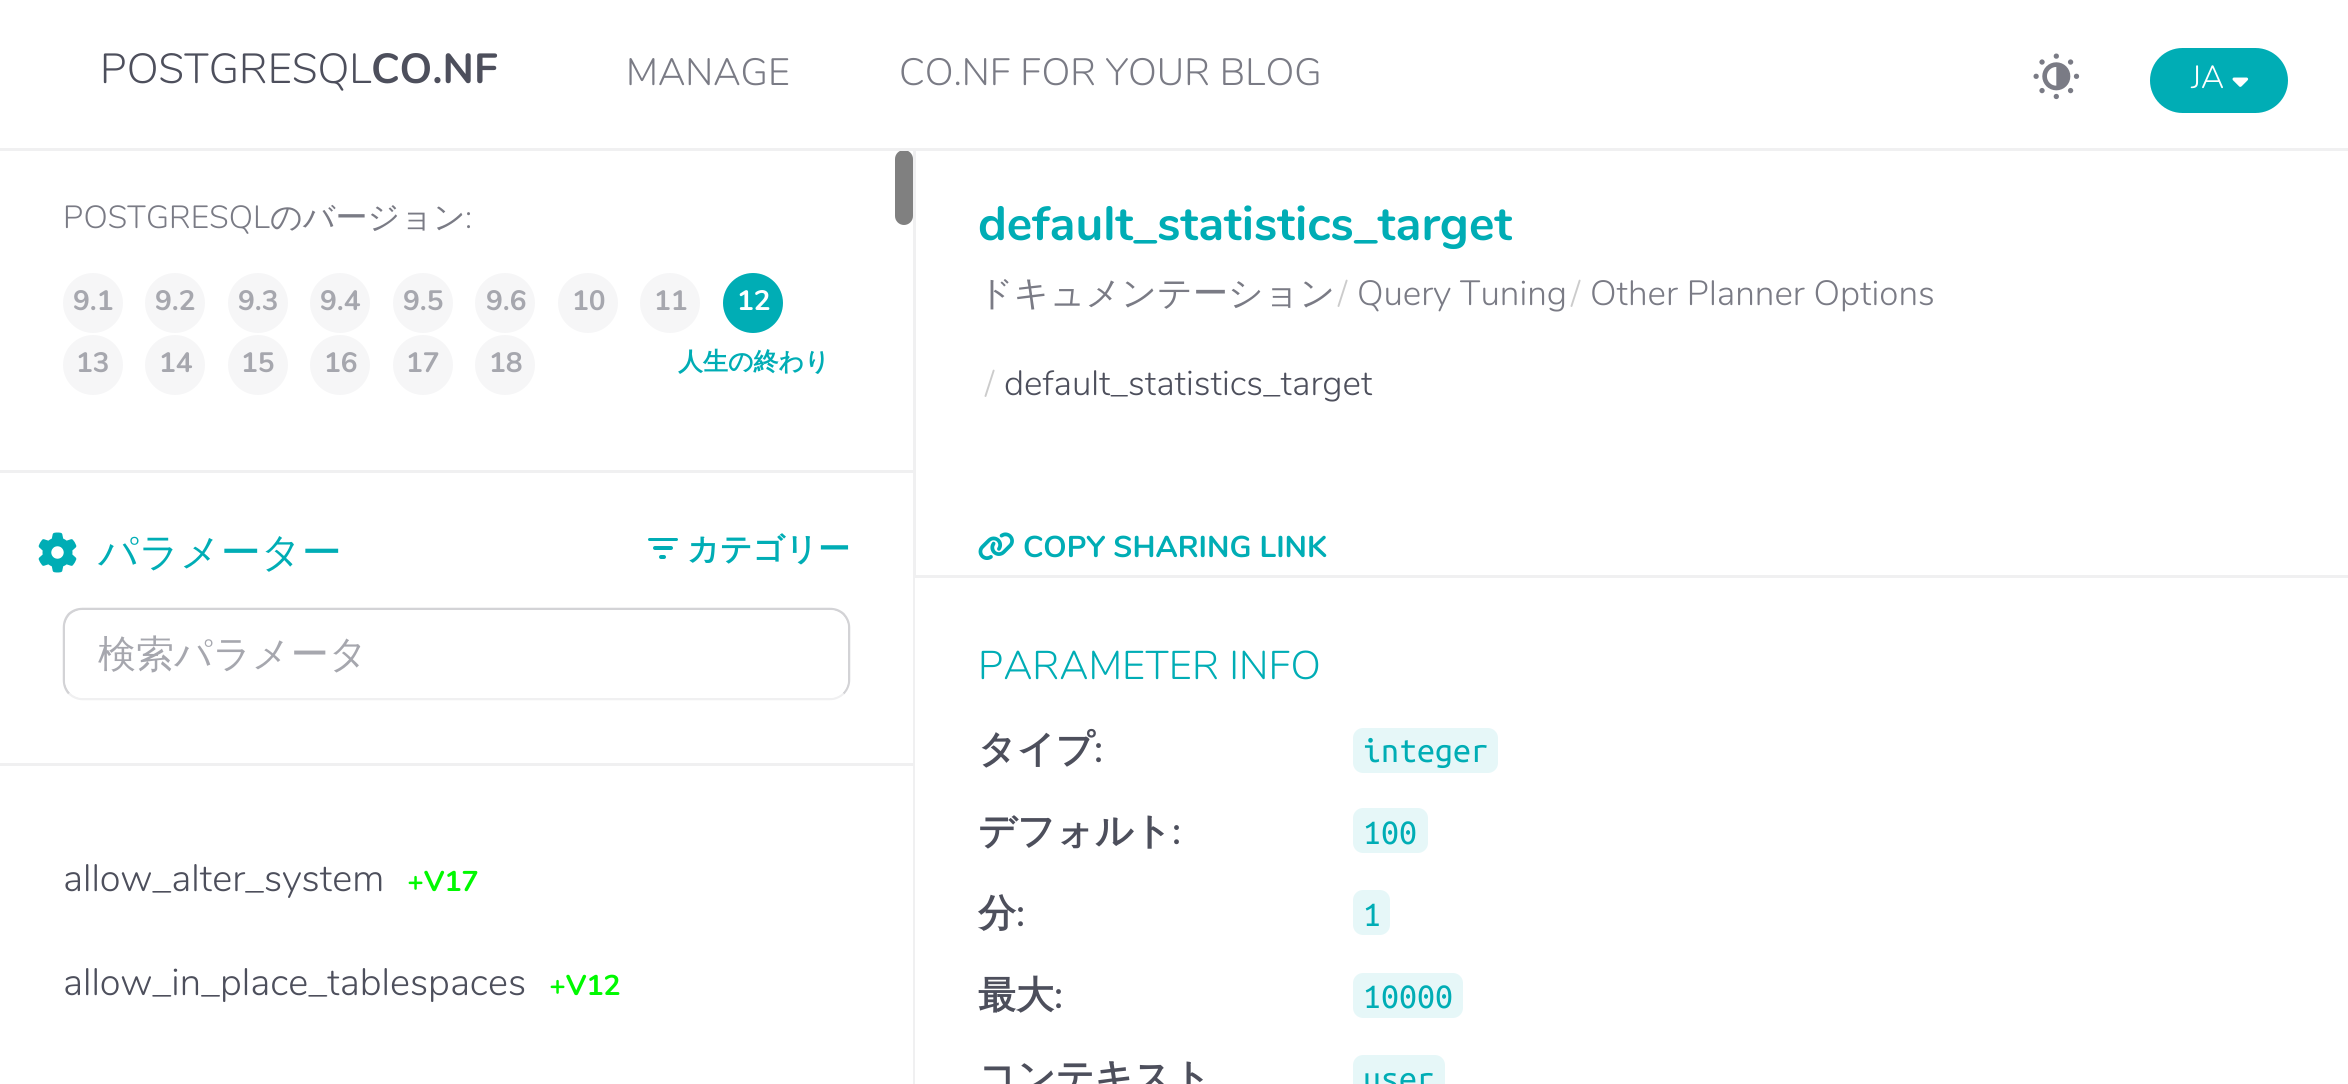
#include <cairo.h>
#include <math.h>
#include <stddef.h>

typedef struct { const char *family; double size; int italic, bold; unsigned color; } style_t;
static cairo_t *ctx;

static void ink(unsigned color) {
    cairo_set_source_rgb(ctx, (color >> 16) / 255.0, (color >> 8 & 255) / 255.0, (color & 255) / 255.0);
}

static void write(double x, double y, const char *s, const style_t *st) {
    cairo_select_font_face(ctx, st->family, st->italic ? CAIRO_FONT_SLANT_ITALIC : CAIRO_FONT_SLANT_NORMAL,
        st->bold ? CAIRO_FONT_WEIGHT_BOLD : CAIRO_FONT_WEIGHT_NORMAL);
    cairo_set_font_size(ctx, st->size);
    ink(st->color);
    cairo_move_to(ctx, x, y);
    cairo_show_text(ctx, s);
}

static void block(double x, double y, double w, double h, unsigned color) {
    ink(color);
    cairo_rectangle(ctx, x, y, w, h);
    cairo_fill(ctx);
}

static void round_path(double x, double y, double w, double h, double r) {
    cairo_new_sub_path(ctx);
    cairo_arc(ctx, x + w - r, y + h - r, r, 0, M_PI / 2);
    cairo_arc(ctx, x + r, y + h - r, r, M_PI / 2, M_PI);
    cairo_arc(ctx, x + r, y + r, r, M_PI, 1.5 * M_PI);
    cairo_arc(ctx, x + w - r, y + r, r, 1.5 * M_PI, 2 * M_PI);
    cairo_close_path(ctx);
}

static void paste(const char *path, double x, double y, double w, double h) {
    cairo_surface_t *image = cairo_image_surface_create_from_png(path);
    cairo_save(ctx);
    cairo_set_source_surface(ctx, image, x, y);
    cairo_rectangle(ctx, x, y, w, h);
    cairo_fill(ctx);
    cairo_restore(ctx);
    cairo_surface_destroy(image);
}

static const style_t s1 = {"Nunito Light", 42, 0, 0, 0x4d4f5c};
static const style_t s2 = {"Nunito", 42, 0, 1, 0x4d4f5c};
static const style_t s3 = {"Nunito Light", 38, 0, 0, 0x7a7b85};
static const style_t s4 = {"Nunito Light", 32, 0, 0, 0xffffff};
static const style_t s5 = {"Nunito Light", 32, 0, 0, 0x7a7b85};
static const style_t s6 = {"WenQuanYi Zen Hei Medium", 32, 0, 0, 0x7a7b85};
static const style_t s7 = {"Nunito", 28, 0, 1, 0xa6a7ae};
static const style_t s8 = {"Nunito", 28, 0, 1, 0xffffff};
static const style_t s9 = {"WenQuanYi Zen Hei", 25, 0, 1, 0x00adb5};
static const style_t s10 = {"WenQuanYi Zen Hei Medium", 40, 0, 0, 0x00adb5};
static const style_t s11 = {"WenQuanYi Zen Hei", 32, 0, 1, 0x00adb5};
static const style_t s12 = {"WenQuanYi Zen Hei Medium", 38, 0, 0, 0xa6a7ae};
static const style_t s13 = {"Nunito Light", 38, 0, 0, 0x4d4f5c};
static const style_t s14 = {"Nunito", 28.5, 0, 1, 0x00f900};
static const style_t s15 = {"Nunito", 48, 0, 1, 0x00adb5};
static const style_t s16 = {"WenQuanYi Zen Hei Medium", 35, 0, 0, 0x7a7b85};
static const style_t s17 = {"Nunito Light", 34, 0, 0, 0xcccccc};
static const style_t s18 = {"Nunito Light", 35, 0, 0, 0x7a7b85};
static const style_t s19 = {"Nunito Light", 35, 0, 0, 0x4d4f5c};
static const style_t s20 = {"Nunito", 30, 0, 1, 0x00adb5};
static const style_t s21 = {"Nunito Light", 40, 0, 0, 0x00adb5};
static const style_t s22 = {"WenQuanYi Zen Hei", 38, 0, 1, 0x4d4f5c};
static const style_t s23 = {"Nunito SemiBold", 38, 0, 0, 0x4d4f5c};
static const style_t s24 = {"Ubuntu Mono", 36, 0, 0, 0x00adb5};

int main(void) {
    cairo_surface_t *surface = cairo_image_surface_create(CAIRO_FORMAT_RGB24, 2348, 1084);
    ctx = cairo_create(surface);
    cairo_font_options_t *options = cairo_font_options_create();
    cairo_font_options_set_hint_metrics(options, CAIRO_HINT_METRICS_OFF);
    cairo_font_options_set_hint_style(options, CAIRO_HINT_STYLE_NONE);
    cairo_set_font_options(ctx, options);
    cairo_set_miter_limit(ctx, 4);
    ink(0xffffff);
    cairo_paint(ctx);
    ink(0x808080);
    round_path(895, 150, 18, 75, 9);
    cairo_fill(ctx);
    block(0, 148, 2348, 3, 0xf0f0f1);
    write(100, 83, "POSTGRESQL", &s1);
    write(371, 83, "CO.NF", &s2);
    write(626, 85, "MANAGE", &s3);
    write(899, 85, "CO.NF FOR YOUR BLOG", &s3);
    paste("pic1.png", 2033, 53, 47, 47);
    ink(0x00adb5);
    round_path(2150, 48, 138, 65, 32.5);
    cairo_fill(ctx);
    write(2191, 88, "JA", &s4);
    paste("pic2.png", 2232, 77, 17, 10);
    block(0, 470, 913, 3, 0xf0f0f1);
    write(63, 228, "POSTGRESQL", &s5);
    write(270, 228, "のバージョン", &s6);
    write(465, 228, ":", &s5);
    ink(0xf6f6f7);
    cairo_new_path(ctx);
    cairo_arc(ctx, 93, 303, 30, 0, 2 * M_PI);
    cairo_fill(ctx);
    write(73, 310, "9.1", &s7);
    ink(0xf6f6f7);
    cairo_new_path(ctx);
    cairo_arc(ctx, 175, 303, 30, 0, 2 * M_PI);
    cairo_fill(ctx);
    write(155, 310, "9.2", &s7);
    ink(0xf6f6f7);
    cairo_new_path(ctx);
    cairo_arc(ctx, 258, 303, 30, 0, 2 * M_PI);
    cairo_fill(ctx);
    write(238, 310, "9.3", &s7);
    ink(0xf6f6f7);
    cairo_new_path(ctx);
    cairo_arc(ctx, 340, 303, 30, 0, 2 * M_PI);
    cairo_fill(ctx);
    write(320, 310, "9.4", &s7);
    ink(0xf6f6f7);
    cairo_new_path(ctx);
    cairo_arc(ctx, 423, 303, 30, 0, 2 * M_PI);
    cairo_fill(ctx);
    write(403, 310, "9.5", &s7);
    ink(0xf6f6f7);
    cairo_new_path(ctx);
    cairo_arc(ctx, 505, 303, 30, 0, 2 * M_PI);
    cairo_fill(ctx);
    write(486, 310, "9.6", &s7);
    ink(0xf6f6f7);
    cairo_new_path(ctx);
    cairo_arc(ctx, 588, 303, 30, 0, 2 * M_PI);
    cairo_fill(ctx);
    write(572, 310, "10", &s7);
    ink(0xf6f6f7);
    cairo_new_path(ctx);
    cairo_arc(ctx, 670, 303, 30, 0, 2 * M_PI);
    cairo_fill(ctx);
    write(654, 310, "11", &s7);
    ink(0x00adb5);
    cairo_new_path(ctx);
    cairo_arc(ctx, 753, 303, 30, 0, 2 * M_PI);
    cairo_fill(ctx);
    write(737, 310, "12", &s8);
    write(678, 370, "人生の終わり", &s9);
    ink(0xf6f6f7);
    cairo_new_path(ctx);
    cairo_arc(ctx, 93, 365, 30, 0, 2 * M_PI);
    cairo_fill(ctx);
    write(76, 372, "13", &s7);
    ink(0xf6f6f7);
    cairo_new_path(ctx);
    cairo_arc(ctx, 175, 365, 30, 0, 2 * M_PI);
    cairo_fill(ctx);
    write(159, 372, "14", &s7);
    ink(0xf6f6f7);
    cairo_new_path(ctx);
    cairo_arc(ctx, 258, 365, 30, 0, 2 * M_PI);
    cairo_fill(ctx);
    write(241, 372, "15", &s7);
    ink(0xf6f6f7);
    cairo_new_path(ctx);
    cairo_arc(ctx, 340, 365, 30, 0, 2 * M_PI);
    cairo_fill(ctx);
    write(324, 372, "16", &s7);
    ink(0xf6f6f7);
    cairo_new_path(ctx);
    cairo_arc(ctx, 423, 365, 30, 0, 2 * M_PI);
    cairo_fill(ctx);
    write(406, 372, "17", &s7);
    ink(0xf6f6f7);
    cairo_new_path(ctx);
    cairo_arc(ctx, 505, 365, 30, 0, 2 * M_PI);
    cairo_fill(ctx);
    write(489, 372, "18", &s7);
    paste("pic3.png", 38, 532, 39, 41);
    write(98, 566, "パラメーター", &s10);
    write(687, 560, "カテゴリー", &s11);
    round_path(648, 538, 30, 3, 1.5);
    cairo_fill(ctx);
    round_path(653, 546, 20, 4, 2);
    cairo_fill(ctx);
    round_path(659, 555, 7, 4, 2);
    cairo_fill(ctx);
    cairo_new_path(ctx);
    cairo_move_to(ctx, 843.5, 693.5);
    cairo_curve_to(ctx, 839.5, 697, 835, 699, 830, 699);
    cairo_line_to(ctx, 82.5, 699);
    cairo_curve_to(ctx, 77.5, 699, 73, 697, 69, 693.5);
    ink(0xf0f0f1);
    cairo_set_line_width(ctx, 2.5);
    cairo_stroke(ctx);
    cairo_new_path(ctx);
    cairo_move_to(ctx, 69, 693.5);
    cairo_curve_to(ctx, 65.5, 689.5, 64, 685, 64, 680);
    cairo_line_to(ctx, 64, 627.5);
    cairo_curve_to(ctx, 64, 622.5, 65.5, 618, 69, 614);
    cairo_curve_to(ctx, 73, 610.5, 77.5, 609, 82.5, 609);
    cairo_line_to(ctx, 830, 609);
    cairo_curve_to(ctx, 835, 609, 839.5, 610.5, 843.5, 614);
    cairo_curve_to(ctx, 847, 618, 849, 622.5, 849, 627.5);
    cairo_line_to(ctx, 849, 680);
    cairo_curve_to(ctx, 849, 685, 847, 689.5, 843.5, 693.5);
    ink(0xd3d3d6);
    cairo_stroke(ctx);
    ink(0xffffff);
    cairo_new_path(ctx);
    cairo_move_to(ctx, 83, 610);
    cairo_line_to(ctx, 748, 610);
    cairo_line_to(ctx, 748, 698);
    cairo_line_to(ctx, 83, 698);
    cairo_curve_to(ctx, 73, 698, 65, 690, 65, 680);
    cairo_line_to(ctx, 65, 628);
    cairo_curve_to(ctx, 65, 618, 73, 610, 83, 610);
    cairo_close_path(ctx);
    cairo_fill(ctx);
    write(98, 667, "検索パラメータ", &s12);
    ink(0xffffff);
    cairo_new_path(ctx);
    cairo_move_to(ctx, 745, 610);
    cairo_line_to(ctx, 830, 610);
    cairo_curve_to(ctx, 840, 610, 848, 618, 848, 628);
    cairo_line_to(ctx, 848, 680);
    cairo_curve_to(ctx, 848, 690, 840, 698, 830, 698);
    cairo_line_to(ctx, 745, 698);
    cairo_close_path(ctx);
    cairo_fill(ctx);
    block(0, 763, 913, 3, 0xf0f0f1);
    write(63, 891, "allow_alter_system", &s13);
    write(407, 891, "+V17", &s14);
    write(63, 995, "allow_in_place_tablespaces", &s13);
    write(549, 995, "+V12", &s14);
    block(913, 151, 3, 933, 0xf0f0f1);
    block(915, 575, 1433, 3, 0xf0f0f1);
    write(978, 240, "default_statistics_target", &s15);
    write(978, 305, "ドキュメンテーション", &s16);
    write(1338, 305, "/", &s17);
    write(1357, 305, "Query Tuning", &s18);
    write(1571, 305, "/", &s17);
    write(1590, 305, "Other Planner Options", &s18);
    write(985, 395, "/", &s17);
    write(1004, 395, "default_statistics_target", &s19);
    paste("pic4.png", 978, 532, 36, 28);
    write(1023, 557, "COPY SHARING LINK", &s20);
    block(915, 578, 1, 506, 0xffffff);
    write(978, 679, "PARAMETER INFO", &s21);
    write(978, 762, "タイプ", &s22);
    write(1094, 762, ":", &s23);
    ink(0xe6f7f8);
    round_path(1353, 728, 145, 45, 10);
    cairo_fill(ctx);
    write(1363, 762, "integer", &s24);
    write(978, 844, "デフォルト", &s22);
    write(1172, 844, ":", &s23);
    ink(0xe6f7f8);
    round_path(1353, 808, 75, 45, 10);
    cairo_fill(ctx);
    write(1363, 844, "100", &s24);
    write(978, 926, "分", &s22);
    write(1016, 926, ":", &s23);
    ink(0xe6f7f8);
    round_path(1353, 890, 37, 45, 10);
    cairo_fill(ctx);
    write(1363, 926, "1", &s24);
    write(978, 1008, "最大", &s22);
    write(1054, 1008, ":", &s23);
    ink(0xe6f7f8);
    round_path(1353, 973, 110, 45, 10);
    cairo_fill(ctx);
    write(1363, 1008, "10000", &s24);
    write(978, 1090, "コンテキスト", &s22);
    ink(0xe6f7f8);
    round_path(1353, 1055, 92, 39, 10);
    cairo_fill(ctx);
    write(1363, 1090, "user", &s24);
    cairo_surface_write_to_png(surface, "screenshot.png");
    cairo_font_options_destroy(options);
    cairo_destroy(ctx);
    cairo_surface_destroy(surface);
    return 0;
}
